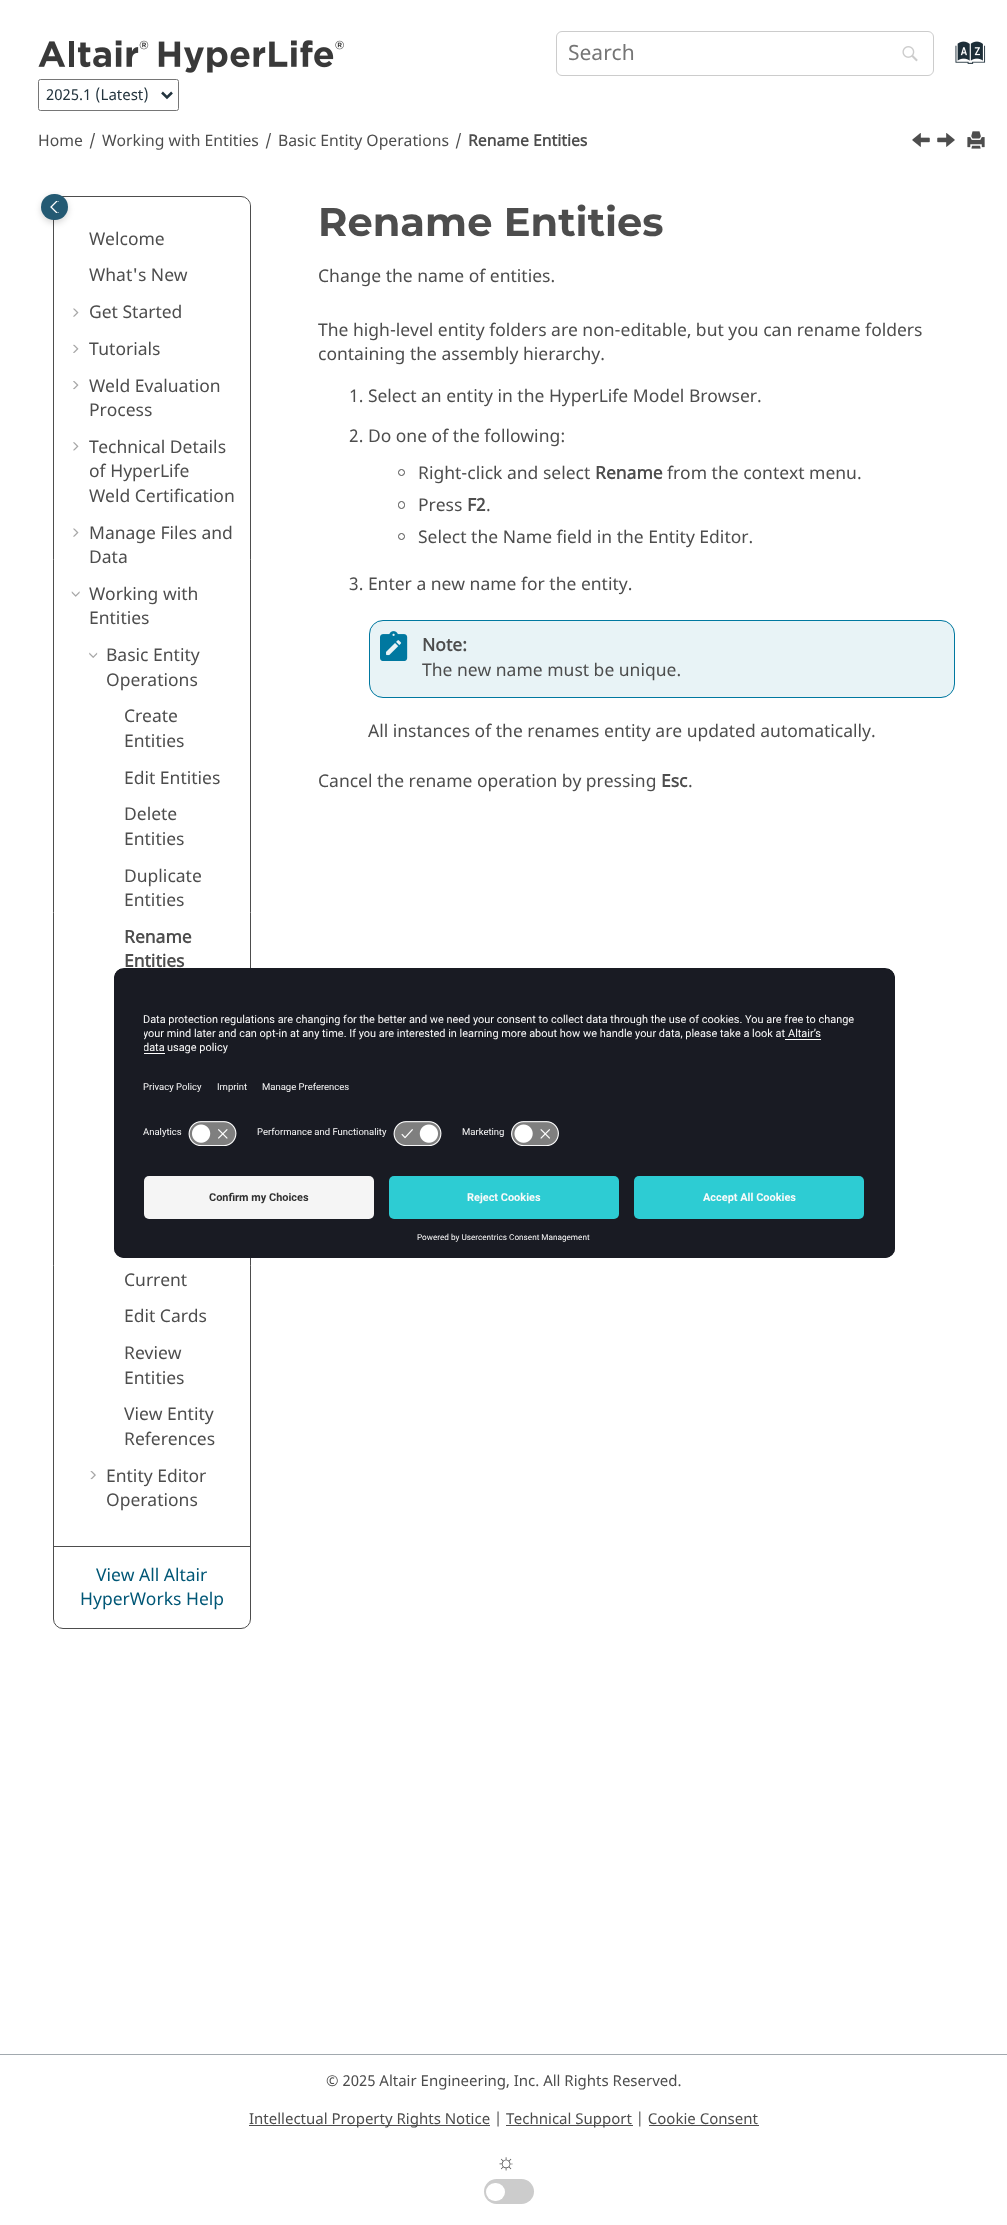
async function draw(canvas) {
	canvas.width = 1007;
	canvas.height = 2225;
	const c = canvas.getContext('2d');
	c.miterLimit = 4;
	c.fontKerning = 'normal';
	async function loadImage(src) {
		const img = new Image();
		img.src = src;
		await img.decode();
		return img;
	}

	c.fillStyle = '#fff';
	c.fillRect(0, 0, 1007, 2225);
	c.beginPath();
	c.roundRect(556.5, 31.5, 377, 44, 5.5);
	c.strokeStyle = '#ccc';
	c.stroke();
	c.font = '21px Noto Sans';
	c.fillStyle = '#757575';
	c.fillText('Search', 568, 60);
	c.drawImage(await loadImage('img1.png'), 902, 46, 16, 16);
	c.drawImage(await loadImage('img2.png'), 955, 41, 31, 23);
	c.drawImage(await loadImage('img3.png'), 38, 40, 306, 33);
	c.beginPath();
	c.roundRect(38.5, 79.5, 140, 31, 2);
	c.strokeStyle = '#767676';
	c.stroke();
	c.beginPath();
	c.moveTo(162, 92.5);
	c.lineTo(167, 97.5);
	c.lineTo(172, 92.5);
	c.strokeStyle = '#23343e';
	c.lineWidth = 2.5;
	c.stroke();
	c.font = '15px Noto Sans';
	c.fillStyle = '#23343e';
	c.fillText('2025.1 (Latest)', 46, 100);
	c.font = '15.75px Noto Sans';
	c.fillStyle = '#4d4d4d';
	for (const [text, x, y] of [
		['Home', 38, 146],
		['/', 89, 146],
		['Working with Entities', 102, 146],
		['/', 265, 146],
		['Basic Entity Operations', 278, 146],
		['/', 455, 146],
	]) {
		c.fillText(text, x, y);
	}
	c.font = 'bold 15.75px Noto Sans';
	c.fillText('Rename Entities', 468, 146);
	c.drawImage(await loadImage('img4.png'), 912, 133, 18, 14);
	c.drawImage(await loadImage('img5.png'), 937, 133, 18, 14);
	c.drawImage(await loadImage('img6.png'), 967, 131, 18, 18);
	c.beginPath();
	c.roundRect(53.5, 196.5, 197, 1432, 9.5);
	c.strokeStyle = '#4d4d4d';
	c.lineWidth = 1;
	c.stroke();
	c.fillStyle = '#fff';
	c.beginPath();
	c.roundRect(54, 198, 196, 1348, [9, 9, 4, 4]);
	c.fill();
	c.font = '17.5px Noto Sans';
	c.fillStyle = '#4d4d4d';
	c.fillText('Welcome', 89, 245);
	c.fillText('What\'s New', 89, 281);
	c.drawImage(await loadImage('img7.png'), 73, 308, 6, 9);
	c.fillText('Get Started', 89, 318);
	c.drawImage(await loadImage('img8.png'), 73, 344, 6, 9);
	c.fillText('Tutorials', 89, 355);
	c.drawImage(await loadImage('img9.png'), 73, 381, 6, 9);
	c.fillText('Weld Evaluation', 89, 392);
	c.fillText('Process', 89, 416);
	c.drawImage(await loadImage('img10.png'), 73, 442, 6, 9);
	for (const [text, x, y] of [
		['Technical Details', 89, 453],
		['of HyperLife', 89, 477],
		['Weld Certification', 89, 502],
	]) {
		c.fillText(text, x, y);
	}
	c.drawImage(await loadImage('img7.png'), 73, 528, 6, 9);
	c.fillText('Manage Files and', 89, 539);
	c.fillText('Data', 89, 563);
	c.drawImage(await loadImage('img11.png'), 71, 591, 9, 6);
	c.fillText('Working with', 89, 600);
	c.fillText('Entities', 89, 624);
	c.drawImage(await loadImage('img12.png'), 89, 652, 9, 6);
	for (const [text, x, y] of [
		['Basic Entity', 106, 661],
		['Operations', 106, 686],
		['Create', 124, 722],
		['Entities', 124, 747],
		['Edit Entities', 124, 784],
		['Delete', 124, 820],
		['Entities', 124, 845],
		['Duplicate', 124, 882],
		['Entities', 124, 906],
	]) {
		c.fillText(text, x, y);
	}
	c.font = 'bold 17.5px Noto Sans';
	c.fillText('Rename', 124, 943);
	c.fillText('Entities', 124, 967);
	c.font = '17.5px Noto Sans';
	for (const [text, x, y] of [
		['Current', 124, 1286],
		['Edit Cards', 124, 1322],
		['Review', 124, 1359],
		['Entities', 124, 1384],
		['View Entity', 124, 1420],
		['References', 124, 1445],
	]) {
		c.fillText(text, x, y);
	}
	c.drawImage(await loadImage('img13.png'), 90, 1471, 6, 9);
	c.fillText('Entity Editor', 106, 1482);
	c.fillText('Operations', 106, 1506);
	c.fillRect(54, 1546, 196, 1);
	c.fillStyle = '#005776';
	c.fillText('View All Altair', 96, 1581);
	c.fillText('HyperWorks Help', 80, 1605);
	c.fillStyle = '#00000029';
	c.filter = 'blur(3px)';
	c.beginPath();
	c.roundRect(41, 196, 27, 27, 13.5);
	c.fill();
	c.filter = 'none';
	c.fillStyle = '#245a73';
	c.beginPath();
	c.roundRect(41, 194, 27, 26, 13);
	c.fill();
	c.save();
	c.beginPath();
	c.rect(50, 201, 9, 12);
	c.clip();
	c.beginPath();
	c.moveTo(58, 200);
	c.lineTo(65, 207);
	c.lineTo(58, 214);
	c.lineTo(51, 207);
	c.closePath();
	c.strokeStyle = '#fff';
	c.lineWidth = 1.3;
	c.stroke();
	c.restore();
	c.font = 'bold 40px Montserrat';
	c.fillStyle = '#4d4d4d';
	c.fillText('Rename Entities', 318, 236);
	c.font = '17.5px Noto Sans';
	for (const [text, x, y] of [
		['Change the name of entities.', 318, 282],
		['The high-level entity folders are non-editable, but you can rename folders', 318, 336],
		['containing the assembly hierarchy.', 318, 360],
		['1. Select an entity in the HyperLife Model Browser.', 349, 402],
		['2. Do one of the following:', 349, 442],
	]) {
		c.fillText(text, x, y);
	}
	c.beginPath();
	c.arc(401.5, 472.5, 3, 0, 2 * Math.PI);
	c.stroke();
	c.fillText('Right-click and select', 418, 479);
	c.font = 'bold 17.5px Noto Sans';
	c.fillText('Rename', 595, 479);
	c.font = '17.5px Noto Sans';
	c.fillText('from the context menu.', 667, 479);
	c.beginPath();
	c.roundRect(398.5, 501.5, 6, 7, 3);
	c.stroke();
	c.fillText('Press', 418, 511);
	c.font = 'bold 17.5px Noto Sans';
	c.fillText('F2', 467, 511);
	c.font = '17.5px Noto Sans';
	c.fillText('.', 486, 511);
	c.beginPath();
	c.arc(401.5, 536.5, 3, 0, 2 * Math.PI);
	c.stroke();
	c.fillText('Select the Name field in the Entity Editor.', 418, 543);
	c.fillText('3. Enter a new name for the entity.', 349, 590);
	c.fillStyle = '#e8f3f6';
	c.beginPath();
	c.roundRect(369, 620, 586, 78, 14);
	c.fill();
	c.drawImage(await loadImage('img14.png'), 380, 631, 28, 30);
	c.beginPath();
	c.roundRect(369.5, 620.5, 585, 77, 13.5);
	c.strokeStyle = '#0078a0';
	c.stroke();
	c.font = 'bold 17.5px Noto Sans';
	c.fillStyle = '#4d4d4d';
	c.fillText('Note:', 422, 651);
	c.font = '17.5px Noto Sans';
	for (const [text, x, y] of [
		['The new name must be unique.', 422, 676],
		['All instances of the renames entity are updated automatically.', 368, 737],
		['Cancel the rename operation by pressing', 318, 787],
	]) {
		c.fillText(text, x, y);
	}
	c.font = 'bold 17.5px Noto Sans';
	c.fillText('Esc', 661, 787);
	c.font = '17.5px Noto Sans';
	c.fillText('.', 688, 787);
	c.fillStyle = '#191b23';
	c.beginPath();
	c.roundRect(114, 968, 781, 290, 10);
	c.fill();
	c.save();
	c.beginPath();
	c.roundRect(114, 968, 781, 290, 10);
	c.clip();
	c.beginPath();
	c.roundRect(114, 968, 781, 198, [10, 10, 0, 0]);
	c.clip();
	c.fillRect(114, 969, 781, 197);
	c.fillRect(114, 969, 781, 147);
	c.restore();
	c.font = '10.95px Roboto';
	c.fillStyle = '#fafafa';
	c.fillText('Data protection regulations are changing for the better and we need your consent to collect data through the use of cookies. You are free to change', 143, 1023);
	c.save();
	c.beginPath();
	c.rect(144, 1009, 721, 51);
	c.clip();
	c.fillText('your mind later and can opt-in at any time. If you are interested in learning more about how we handle your data, please take a look at', 143, 1037);
	c.restore();
	c.fillText('Altair’s', 788, 1037);
	c.fillStyle = '#fff';
	c.fillRect(785, 1039, 36, 1);
	c.save();
	c.beginPath();
	c.rect(144, 1009, 721, 51);
	c.clip();
	c.fillStyle = '#fafafa';
	c.fillText('data', 143, 1051);
	c.restore();
	c.fillRect(144, 1053, 21, 1);
	c.fillStyle = '#fafafa';
	c.fillText('usage policy', 167, 1051);
	c.font = '9.5px Roboto';
	for (const [text, x, y] of [
		['Privacy Policy', 143, 1090],
		['Imprint', 217, 1090],
		['Manage Preferences', 262, 1090],
		['Analytics', 143, 1135],
	]) {
		c.fillText(text, x, y);
	}
	c.drawImage(await loadImage('img15.png'), 188, 1121, 49, 25);
	c.fillText('Performance and Functionality', 257, 1135);
	c.drawImage(await loadImage('img16.png'), 393, 1121, 49, 25);
	c.fillText('Marketing', 462, 1135);
	c.drawImage(await loadImage('img17.png'), 511, 1121, 48, 25);
	c.fillStyle = '#191b23';
	c.beginPath();
	c.roundRect(114, 1166, 781, 92, [0, 0, 10, 10]);
	c.fill();
	c.fillStyle = '#f5f5f5';
	c.beginPath();
	c.roundRect(144, 1176, 230, 43, 5);
	c.fill();
	c.font = 'bold 10.95px Roboto';
	c.fillStyle = '#303030';
	c.fillText('Confirm my Choices', 209, 1201);
	c.fillStyle = '#2dccd3';
	c.beginPath();
	c.roundRect(389, 1176, 230, 43, 5);
	c.fill();
	c.fillStyle = '#fafafa';
	c.fillText('Reject Cookies', 467, 1201);
	c.fillStyle = '#2dccd3';
	c.beginPath();
	c.roundRect(634, 1176, 230, 43, 5);
	c.fill();
	c.fillStyle = '#fafafa';
	c.fillText('Accept All Cookies', 703, 1201);
	c.font = '8.2px Roboto';
	c.fillText('Powered by Usercentrics Consent Management', 417, 1240);
	c.fillStyle = '#a2a9af';
	c.fillRect(0, 2054, 1007, 1);
	c.font = '15px Noto Sans';
	c.fillStyle = '#4d4d4d';
	c.fillText('© 2025 Altair Engineering, Inc. All Rights Reserved.', 326, 2086);
	c.fillRect(249, 2125, 241, 1);
	c.fillText('Intellectual Property Rights Notice |', 249, 2124);
	c.fillRect(506, 2125, 127, 1);
	c.fillText('Technical Support | Cookie Consent', 506, 2124);
	c.fillRect(649, 2125, 110, 1);
	c.font = '22px Liberation Sans';
	c.fillText('☼', 496, 2169);
	c.fillStyle = '#ccc';
	c.beginPath();
	c.roundRect(484, 2179, 50, 25, 12.5);
	c.fill();
	c.fillStyle = '#fff';
	c.beginPath();
	c.roundRect(486, 2183, 19, 18, 9);
	c.fill();
}

draw(document.querySelector('canvas'));
